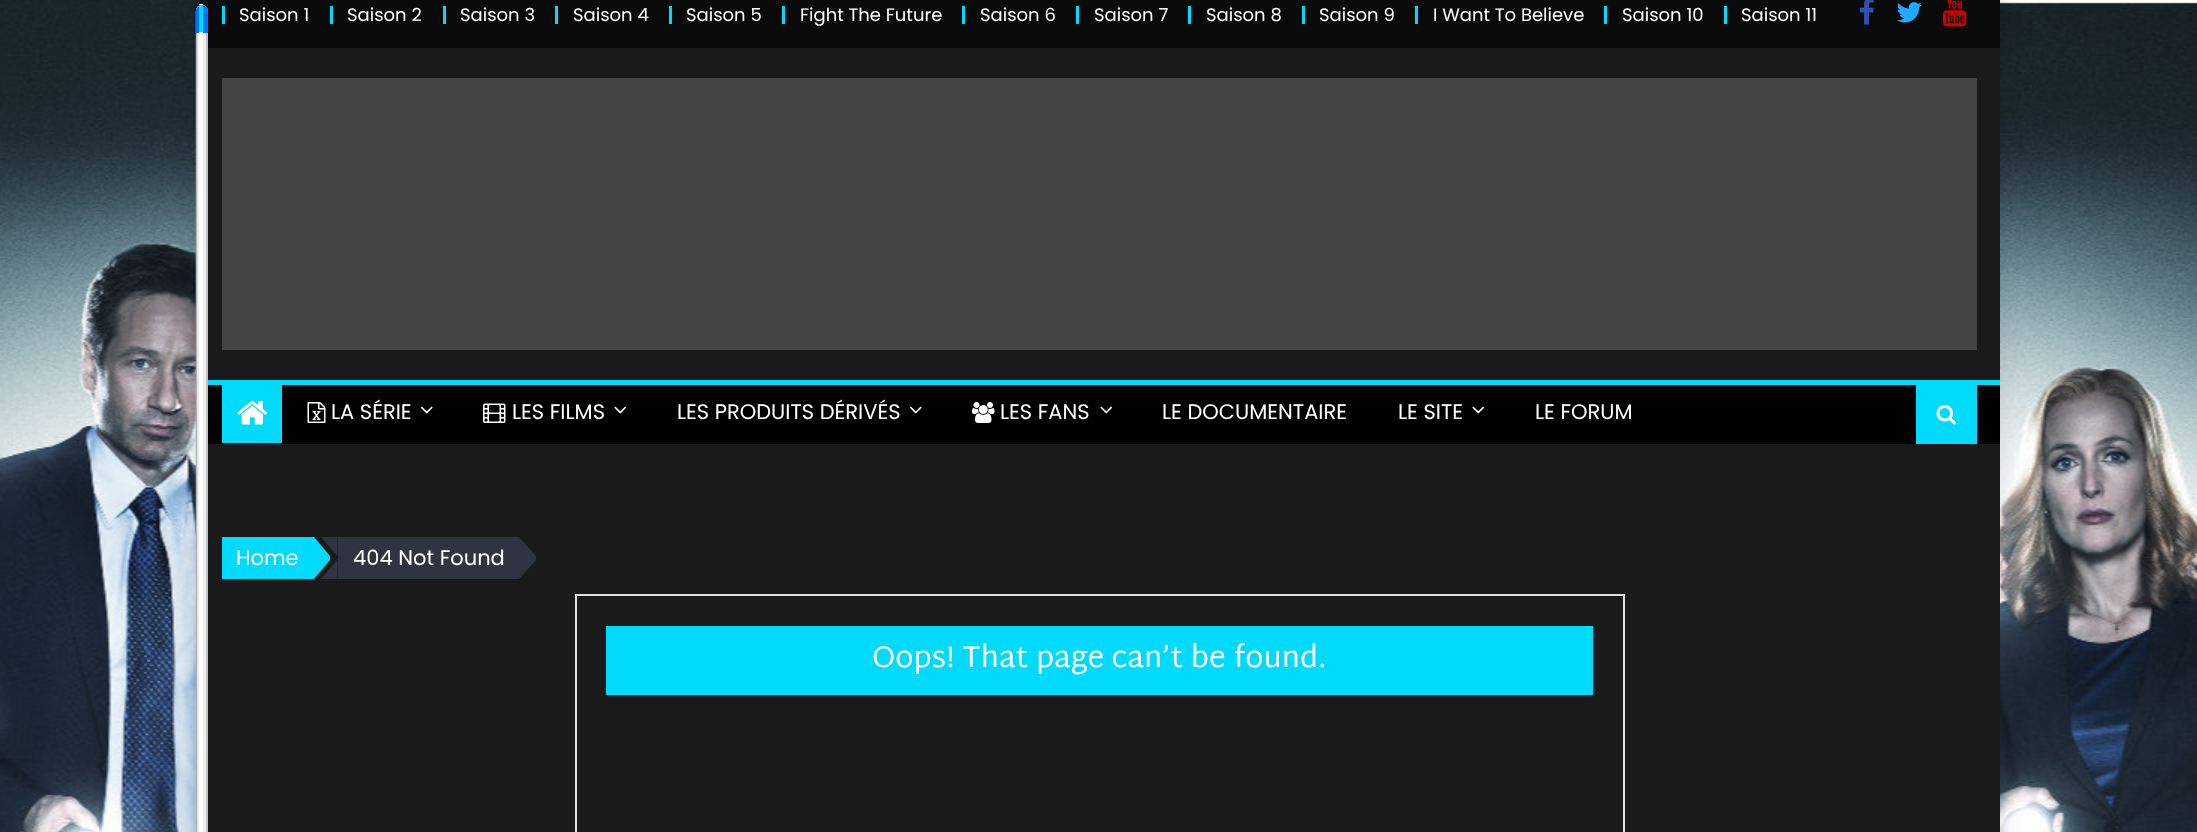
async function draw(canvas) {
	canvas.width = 2197;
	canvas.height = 832;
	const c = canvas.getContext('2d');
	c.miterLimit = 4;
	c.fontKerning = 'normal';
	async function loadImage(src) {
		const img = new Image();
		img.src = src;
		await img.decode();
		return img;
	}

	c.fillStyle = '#fff';
	c.fillRect(0, 0, 2197, 832);
	c.drawImage(await loadImage('img1.png'), 0, 0, 2197, 832);
	c.fillStyle = '#0000001a';
	c.filter = 'blur(11px)';
	c.beginPath();
	c.rect(200, -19, 1800, 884);
	c.fill();
	c.filter = 'none';
	for (const [x, y, w, h, color] of [
		[208, 48, 1792, 784, '#1a1a1a'],
		[200, 0, 1800, 48, '#0a0a0a'],
		[200, 380, 1800, 5, '#00dafc'],
	]) {
		c.fillStyle = color;
		c.fillRect(x, y, w, h);
	}
	c.fillStyle = '#efefef';
	c.beginPath();
	c.moveTo(208, 11);
	c.lineTo(208, 832);
	c.bezierCurveTo(208, 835, 205, 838, 202, 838);
	c.bezierCurveTo(198, 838, 196, 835, 196, 832);
	c.lineTo(196, 11);
	c.bezierCurveTo(196, 8, 198, 5, 202, 5);
	c.bezierCurveTo(205, 5, 208, 8, 208, 11);
	c.closePath();
	c.fill();
	c.beginPath();
	c.moveTo(207, 11);
	c.lineTo(207, 832);
	c.bezierCurveTo(207, 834.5, 204.5, 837, 202, 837);
	c.bezierCurveTo(199, 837, 196.5, 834.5, 196.5, 832);
	c.lineTo(196.5, 11);
	c.bezierCurveTo(196.5, 8.5, 199, 6, 202, 6);
	c.bezierCurveTo(204.5, 6, 207, 8.5, 207, 11);
	c.closePath();
	c.strokeStyle = '#b2b2b2';
	c.lineWidth = 1.5;
	c.stroke();
	c.fillStyle = '#0075ff';
	c.beginPath();
	c.moveTo(208, 11);
	c.lineTo(208, 33);
	c.lineTo(196, 33);
	c.lineTo(196, 9.5);
	c.lineTo(197, 8);
	c.bezierCurveTo(200, 3, 208, 5.5, 208, 11);
	c.closePath();
	c.fill();
	for (const [x, y, w, h, color] of [
		[199, 4, 4, 828, '#fff'],
		[199, 5, 4, 27, '#00dafc'],
		[222, 6, 3, 18, '#00dafc'],
	]) {
		c.fillStyle = color;
		c.fillRect(x, y, w, h);
	}
	c.font = '18px Poppins';
	c.fillStyle = '#fff';
	c.fillText('Saison 1', 239, 21);
	c.fillStyle = '#00dafc';
	c.fillRect(330, 6, 3, 18);
	c.fillStyle = '#fff';
	c.fillText('Saison 2', 347, 21);
	c.fillStyle = '#00dafc';
	c.fillRect(443, 6, 3, 18);
	c.fillStyle = '#fff';
	c.fillText('Saison 3', 460, 21);
	c.fillStyle = '#00dafc';
	c.fillRect(555, 6, 3, 18);
	c.fillStyle = '#fff';
	c.fillText('Saison 4', 573, 21);
	c.fillStyle = '#00dafc';
	c.fillRect(669, 6, 3, 18);
	c.fillStyle = '#fff';
	c.fillText('Saison 5', 686, 21);
	c.fillStyle = '#00dafc';
	c.fillRect(782, 6, 3, 18);
	c.fillStyle = '#fff';
	c.fillText('Fight The Future', 800, 21);
	c.fillStyle = '#00dafc';
	c.fillRect(962, 6, 3, 18);
	c.fillStyle = '#fff';
	c.fillText('Saison 6', 980, 21);
	c.fillStyle = '#00dafc';
	c.fillRect(1076, 6, 3, 18);
	c.fillStyle = '#fff';
	c.fillText('Saison 7', 1094, 21);
	c.fillStyle = '#00dafc';
	c.fillRect(1188, 6, 3, 18);
	c.fillStyle = '#fff';
	c.fillText('Saison 8', 1206, 21);
	c.fillStyle = '#00dafc';
	c.fillRect(1302, 6, 3, 18);
	c.fillStyle = '#fff';
	c.fillText('Saison 9', 1319, 21);
	c.fillStyle = '#00dafc';
	c.fillRect(1415, 6, 3, 18);
	c.fillStyle = '#fff';
	c.fillText('I Want To Believe', 1433, 21);
	c.fillStyle = '#00dafc';
	c.fillRect(1604, 6, 3, 18);
	c.fillStyle = '#fff';
	c.fillText('Saison 10', 1622, 21);
	c.fillStyle = '#00dafc';
	c.fillRect(1724, 6, 3, 18);
	c.fillStyle = '#fff';
	c.fillText('Saison 11', 1741, 21);
	c.drawImage(await loadImage('img2.png'), 1860, 0, 14, 25);
	c.drawImage(await loadImage('img3.png'), 1896, 2, 26, 21);
	c.drawImage(await loadImage('img4.png'), 1942, 0, 25, 27);
	for (const [x, y, w, h, color] of [
		[222, 78, 1755, 272, '#444'],
		[208, 385, 1792, 59, '#000'],
		[222, 385, 60, 58, '#00dafc'],
	]) {
		c.fillStyle = color;
		c.fillRect(x, y, w, h);
	}
	c.drawImage(await loadImage('img5.png'), 237, 400, 31, 25);
	c.drawImage(await loadImage('img6.png'), 307, 402, 19, 21);
	c.font = '21px Poppins';
	c.fillStyle = '#fff';
	c.fillText('LA SÉRIE', 331, 419);
	c.drawImage(await loadImage('img7.png'), 420, 406, 13, 8);
	c.drawImage(await loadImage('img8.png'), 483, 403, 23, 20);
	c.fillText('LES FILMS', 512, 419);
	c.drawImage(await loadImage('img9.png'), 614, 406, 13, 8);
	c.fillText('LES PRODUITS DÉRIVÉS', 677, 419);
	c.drawImage(await loadImage('img7.png'), 909, 406, 13, 8);
	c.drawImage(await loadImage('img10.png'), 972, 402, 23, 21);
	c.fillText('LES FANS', 1000, 419);
	c.drawImage(await loadImage('img9.png'), 1100, 406, 13, 8);
	c.fillText('LE DOCUMENTAIRE', 1162, 419);
	c.fillText('LE SITE', 1398, 419);
	c.drawImage(await loadImage('img9.png'), 1472, 406, 13, 8);
	c.fillText('LE FORUM', 1535, 419);
	c.fillStyle = '#00dafc';
	c.fillRect(1916, 385, 61, 59);
	c.drawImage(await loadImage('img11.png'), 1936, 405, 20, 20);
	c.fillRect(222, 537, 92, 42);
	c.fillStyle = '#fff';
	c.fillText('Home', 236, 565);
	c.fillStyle = '#00dafc';
	c.beginPath();
	c.moveTo(314, 579);
	c.lineTo(314, 537);
	c.lineTo(330, 556);
	c.lineTo(330, 560);
	c.closePath();
	c.fill();
	c.fillStyle = '#303440';
	c.beginPath();
	c.moveTo(321, 537);
	c.lineTo(337.5, 537);
	c.lineTo(337.5, 556.5);
	c.closePath();
	c.moveTo(337.5, 579);
	c.lineTo(321, 579);
	c.lineTo(337.5, 559.5);
	c.closePath();
	c.fill();
	c.fillRect(338, 537, 181, 42);
	c.fillStyle = '#fff';
	c.fillText('404 Not Found', 353, 565);
	c.fillStyle = '#303440';
	c.beginPath();
	c.moveTo(519, 579);
	c.lineTo(519, 537);
	c.lineTo(536, 556);
	c.lineTo(536, 560);
	c.closePath();
	c.fill();
	c.strokeStyle = '#e1e1e1';
	c.lineWidth = 2;
	c.strokeRect(576, 595, 1048, 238);
	c.fillStyle = '#00dafc';
	c.fillRect(606, 626, 987, 69);
	c.font = '30px Martel Sans';
	c.fillStyle = '#fff';
	c.fillText('Oops! That page can’t be found.', 872, 667);
}

draw(document.querySelector('canvas'));
